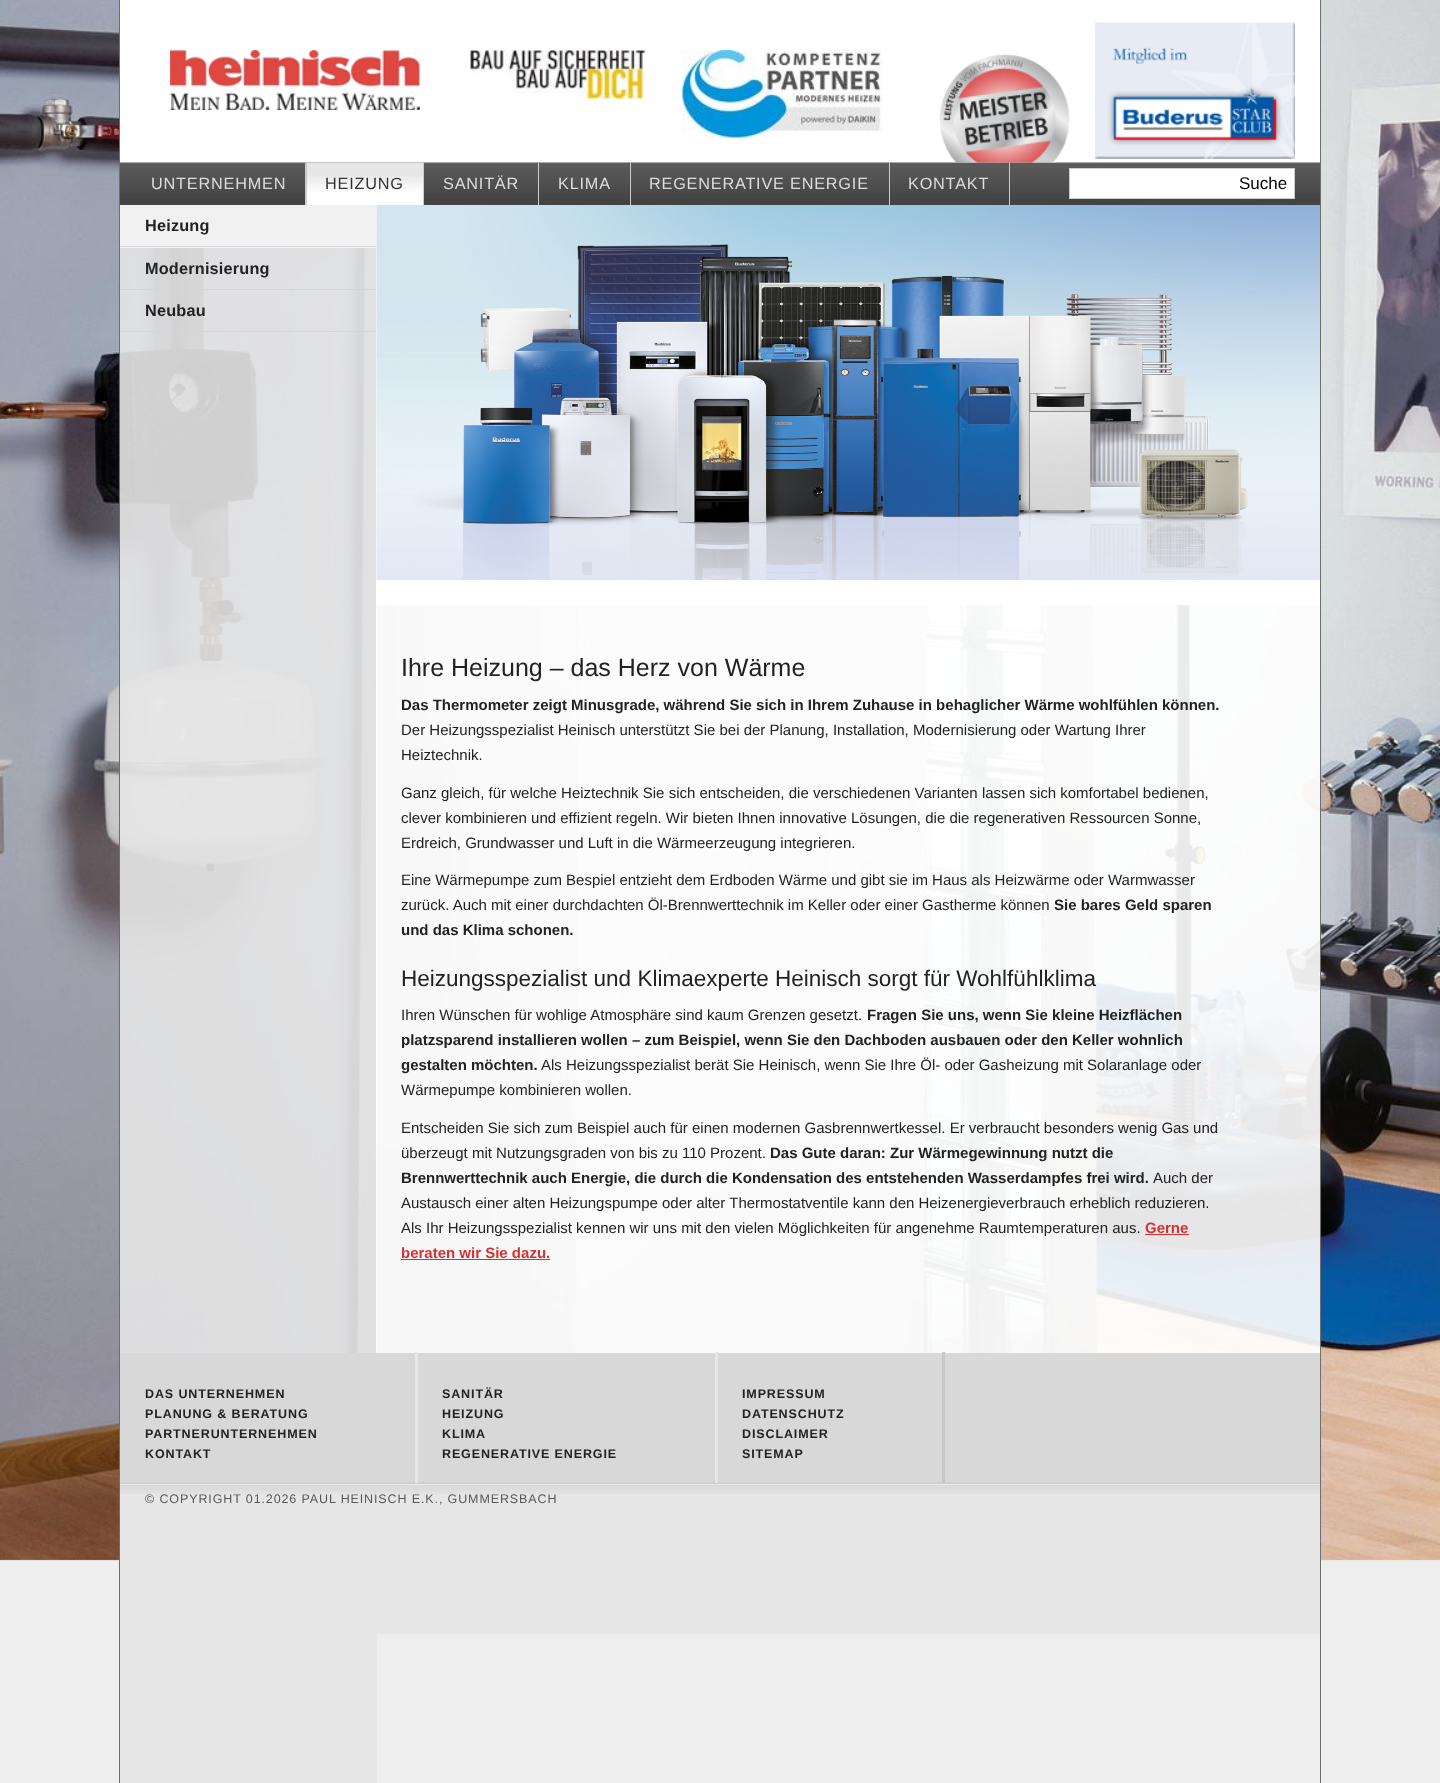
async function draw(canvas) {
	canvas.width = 1440;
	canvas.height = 1783;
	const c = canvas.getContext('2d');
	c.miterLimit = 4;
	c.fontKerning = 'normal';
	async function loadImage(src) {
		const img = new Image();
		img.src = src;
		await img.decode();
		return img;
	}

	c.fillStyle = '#eee';
	c.fillRect(0, 0, 1440, 1783);
	c.drawImage(await loadImage('img1.png'), 0, 0, 1440, 1561);
	for (const [x, y, w, h, color] of [
		[120, 248, 257, 1535, '#e6e6e6e6'],
		[1320, 0, 1, 1783, '#6e6e6e'],
		[119, 0, 1, 1783, '#6e6e6e'],
		[120, 0, 1200, 163, '#fff'],
	]) {
		c.fillStyle = color;
		c.fillRect(x, y, w, h);
	}
	c.drawImage(await loadImage('img2.png'), 170, 50, 250, 60);
	c.drawImage(await loadImage('img7.png'), 120, 162, 1200, 43);
	c.drawImage(await loadImage('img3.png'), 939, 53, 131, 110);
	c.drawImage(await loadImage('img4.png'), 470, 50, 175, 49);
	c.drawImage(await loadImage('img5.png'), 682, 50, 201, 88);
	c.drawImage(await loadImage('img6.png'), 1095, 22, 200, 137);
	c.fillStyle = '#ccc';
	c.fillRect(305, 163, 1, 42);
	c.letterSpacing = '0.8px';
	c.font = '16.25px Liberation Sans';
	c.fillStyle = '#ddd';
	c.fillText('UNTERNEHMEN', 151, 189);
	c.drawImage(await loadImage('img8.png'), 306, 162, 118, 43);
	c.fillStyle = '#ccc';
	c.fillRect(423, 163, 1, 42);
	c.fillStyle = '#333';
	c.fillText('HEIZUNG', 325, 189);
	c.fillStyle = '#ccc';
	c.fillRect(538, 163, 1, 42);
	c.fillStyle = '#ddd';
	c.fillText('SANITÄR', 443, 189);
	c.fillStyle = '#ccc';
	c.fillRect(630, 163, 1, 42);
	c.fillStyle = '#ddd';
	c.fillText('KLIMA', 558, 189);
	c.fillStyle = '#ccc';
	c.fillRect(889, 163, 1, 42);
	c.fillStyle = '#ddd';
	c.fillText('REGENERATIVE ENERGIE', 649, 189);
	c.fillStyle = '#ccc';
	c.fillRect(1009, 163, 1, 42);
	c.fillStyle = '#ddd';
	c.fillText('KONTAKT', 908, 189);
	for (const [x, y, w, h, color] of [
		[1070, 169, 224, 29, '#fff'],
		[1069, 168, 226, 1, '#ccc'],
		[1069, 198, 164, 1, '#ccc'],
		[1069, 168, 1, 31, '#ccc'],
		[1294, 168, 1, 31, '#ccc'],
		[1233, 198, 62, 1, '#ccc'],
	]) {
		c.fillStyle = color;
		c.fillRect(x, y, w, h);
	}
	c.letterSpacing = '0px';
	c.font = '17px Liberation Sans';
	c.fillStyle = '#000';
	c.fillText('Suche', 1239, 189);
	c.fillStyle = '#f1f1f1';
	c.fillRect(120, 205, 256, 43);
	c.fillStyle = '#d5d5d5';
	c.fillRect(120, 246, 256, 1);
	c.letterSpacing = '0.2px';
	c.font = 'bold 16.25px Liberation Sans';
	c.fillStyle = '#222';
	c.fillText('Heizung', 145, 231);
	c.fillStyle = '#d5d5d5';
	c.fillRect(120, 289, 256, 1);
	c.fillStyle = '#222';
	c.fillText('Modernisierung', 145, 274);
	c.fillStyle = '#d5d5d5';
	c.fillRect(120, 331, 256, 1);
	c.fillStyle = '#222';
	c.fillText('Neubau', 145, 316);
	c.fillStyle = '#fff';
	c.fillRect(376, 205, 944, 400);
	c.drawImage(await loadImage('img9.png'), 376, 205, 944, 375);
	c.fillStyle = '#ffffffe6';
	c.fillRect(376, 605, 944, 748);
	c.letterSpacing = '0px';
	c.font = '25px Liberation Sans';
	c.fillStyle = '#222';
	c.fillText('Ihre Heizung – das Herz von Wärme', 401, 676);
	c.font = 'bold 15px Liberation Sans';
	c.fillText('Das Thermometer zeigt Minusgrade, während Sie sich in Ihrem Zuhause in behaglicher Wärme wohlfühlen können.', 401, 710);
	c.font = '15px Liberation Sans';
	for (const [text, x, y] of [
		['Der Heizungsspezialist Heinisch unterstützt Sie bei der Planung, Installation, Modernisierung oder Wartung Ihrer', 401, 735],
		['Heiztechnik.', 401, 760],
		['Ganz gleich, für welche Heiztechnik Sie sich entscheiden, die verschiedenen Varianten lassen sich komfortabel bedienen,', 401, 798],
		['clever kombinieren und effizient regeln. Wir bieten Ihnen innovative Lösungen, die die regenerativen Ressourcen Sonne,', 401, 823],
		['Erdreich, Grundwasser und Luft in die Wärmeerzeugung integrieren.', 401, 848],
		['Eine Wärmepumpe zum Bespiel entzieht dem Erdboden Wärme und gibt sie im Haus als Heizwärme oder Warmwasser', 401, 885],
		['zurück. Auch mit einer durchdachten Öl-Brennwerttechnik im Keller oder einer Gastherme können', 401, 910],
	]) {
		c.fillText(text, x, y);
	}
	c.font = 'bold 15px Liberation Sans';
	c.fillText('Sie bares Geld sparen', 1054, 910);
	c.fillText('und das Klima schonen.', 401, 935);
	c.font = '22.5px Liberation Sans';
	c.fillText('Heizungsspezialist und Klimaexperte Heinisch sorgt für Wohlfühlklima', 401, 986);
	c.font = '15px Liberation Sans';
	c.fillText('Ihren Wünschen für wohlige Atmosphäre sind kaum Grenzen gesetzt.', 401, 1020);
	c.font = 'bold 15px Liberation Sans';
	for (const [text, x, y] of [
		['Fragen Sie uns, wenn Sie kleine Heizflächen', 867, 1020],
		['platzsparend installieren wollen – zum Beispiel, wenn Sie den Dachboden ausbauen oder den Keller wohnlich', 401, 1045],
		['gestalten möchten.', 401, 1070],
	]) {
		c.fillText(text, x, y);
	}
	c.font = '15px Liberation Sans';
	for (const [text, x, y] of [
		['Als Heizungsspezialist berät Sie Heinisch, wenn Sie Ihre Öl- oder Gasheizung mit Solaranlage oder', 541, 1070],
		['Wärmepumpe kombinieren wollen.', 401, 1095],
		['Entscheiden Sie sich zum Beispiel auch für einen modernen Gasbrennwertkessel. Er verbraucht besonders wenig Gas und', 401, 1133],
		['überzeugt mit Nutzungsgraden von bis zu 110 Prozent.', 401, 1158],
	]) {
		c.fillText(text, x, y);
	}
	c.font = 'bold 15px Liberation Sans';
	c.fillText('Das Gute daran: Zur Wärmegewinnung nutzt die', 770, 1158);
	c.fillText('Brennwerttechnik auch Energie, die durch die Kondensation des entstehenden Wasserdampfes frei wird.', 401, 1183);
	c.font = '15px Liberation Sans';
	for (const [text, x, y] of [
		['Auch der', 1153, 1183],
		['Austausch einer alten Heizungspumpe oder alter Thermostatventile kann den Heizenergieverbrauch erheblich reduzieren.', 401, 1208],
		['Als Ihr Heizungsspezialist kennen wir uns mit den vielen Möglichkeiten für angenehme Raumtemperaturen aus.', 401, 1233],
	]) {
		c.fillText(text, x, y);
	}
	c.font = 'bold 15px Liberation Sans';
	c.fillStyle = '#d53133';
	c.fillText('Gerne', 1145, 1233);
	c.fillRect(1145, 1234, 44, 1);
	c.fillText('beraten wir Sie dazu.', 401, 1258);
	c.fillRect(401, 1259, 149, 1);
	c.fillStyle = '#d8d8d8';
	c.fillRect(120, 1353, 1200, 130);
	c.drawImage(await loadImage('img10.png'), 120, 1482, 1200, 12);
	c.fillStyle = '#e6e6e6';
	c.fillRect(415, 1352, 3, 131);
	c.letterSpacing = '0.88px';
	c.font = 'bold 12.5px Liberation Sans';
	c.fillStyle = '#222';
	for (const [text, x, y] of [
		['DAS UNTERNEHMEN', 145, 1398],
		['PLANUNG & BERATUNG', 145, 1418],
		['PARTNERUNTERNEHMEN', 145, 1438],
		['KONTAKT', 145, 1458],
	]) {
		c.fillText(text, x, y);
	}
	c.fillStyle = '#e6e6e6';
	c.fillRect(715, 1352, 3, 131);
	c.fillStyle = '#222';
	for (const [text, x, y] of [
		['SANITÄR', 442, 1398],
		['HEIZUNG', 442, 1418],
		['KLIMA', 442, 1438],
		['REGENERATIVE ENERGIE', 442, 1458],
	]) {
		c.fillText(text, x, y);
	}
	c.fillStyle = '#c7c7c7';
	c.fillRect(942, 1352, 3, 131);
	c.fillStyle = '#222';
	for (const [text, x, y] of [
		['IMPRESSUM', 742, 1398],
		['DATENSCHUTZ', 742, 1418],
		['DISCLAIMER', 742, 1438],
		['SITEMAP', 742, 1458],
	]) {
		c.fillText(text, x, y);
	}
	c.fillStyle = '#e6e6e6';
	c.fillRect(120, 1494, 1200, 140);
	c.font = '12.5px Liberation Sans';
	c.fillStyle = '#585858';
	c.fillText('© COPYRIGHT 01.2026 PAUL HEINISCH E.K., GUMMERSBACH', 145, 1503);
}

draw(document.querySelector('canvas'));
